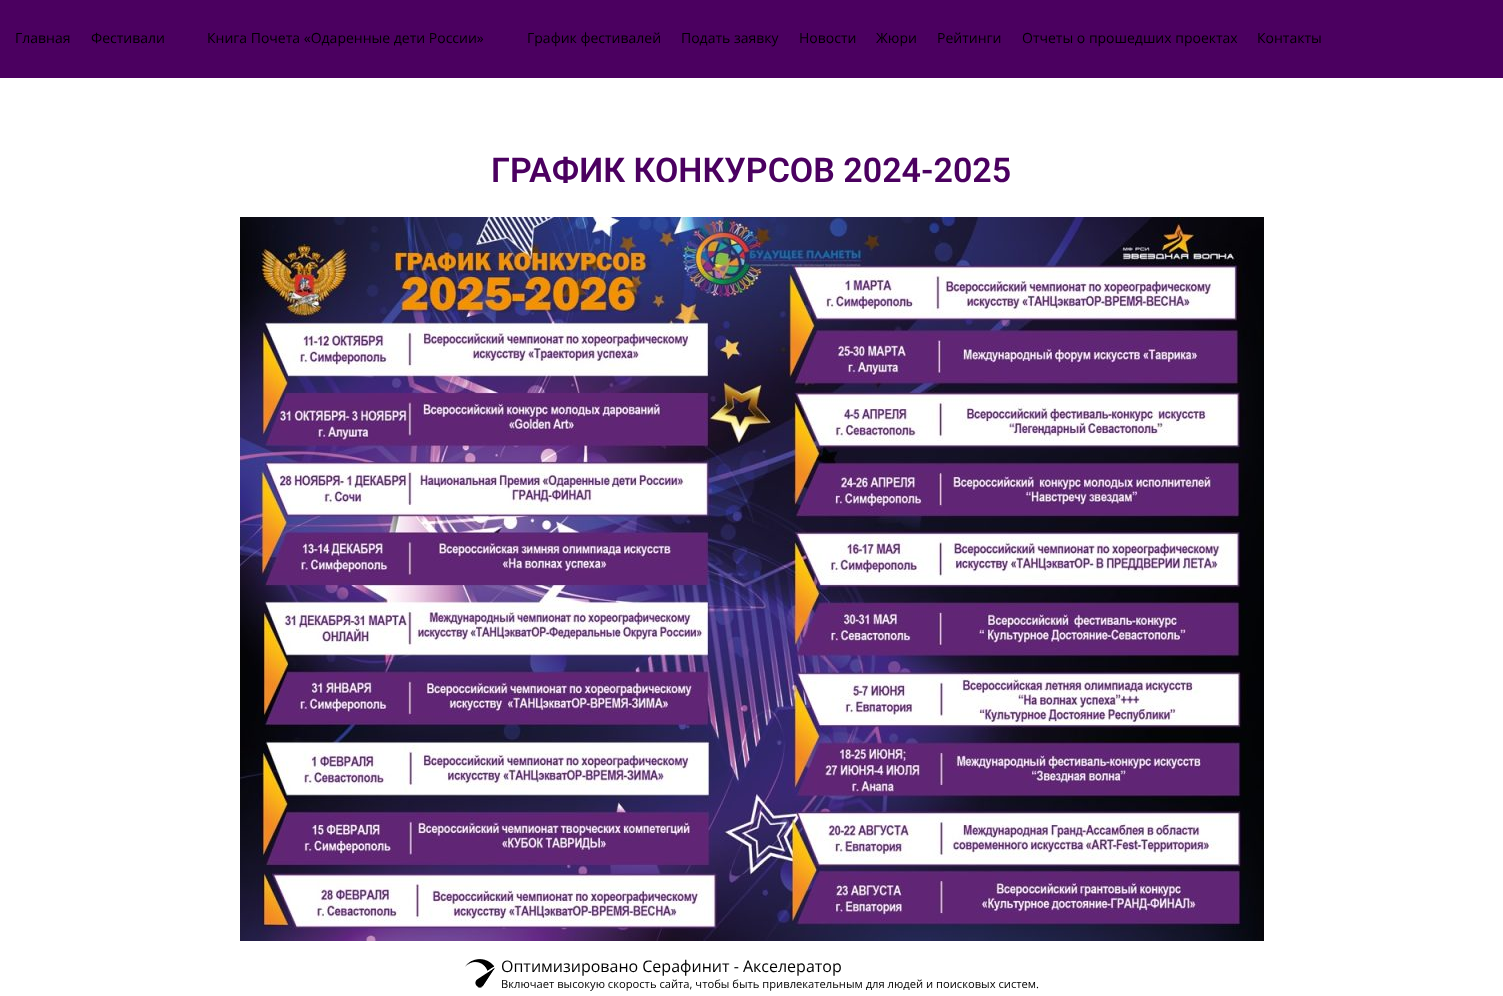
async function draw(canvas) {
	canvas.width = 1503;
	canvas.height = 996;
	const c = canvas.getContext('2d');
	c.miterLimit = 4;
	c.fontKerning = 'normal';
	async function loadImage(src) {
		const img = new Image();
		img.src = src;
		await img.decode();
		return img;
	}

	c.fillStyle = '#fff';
	c.fillRect(0, 0, 1503, 996);
	c.fillStyle = '#4b0060';
	c.fillRect(0, 0, 1503, 78);
	c.font = '14px Open Sans';
	c.fillStyle = '#000';
	for (const [text, x, y] of [
		['Главная', 15, 43],
		['Фестивали', 91, 43],
		['Книга Почета «Одаренные дети России»', 207, 43],
		['График фестивалей', 527, 43],
		['Подать заявку', 681, 43],
		['Новости', 799, 43],
		['Жюри', 876, 43],
		['Рейтинги', 937, 43],
		['Отчеты о прошедших проектах', 1022, 43],
		['Контакты', 1257, 43],
	]) {
		c.fillText(text, x, y);
	}
	c.font = '600 34px Roboto';
	c.fillStyle = '#4b0060';
	c.fillText('ГРАФИК КОНКУРСОВ 2024-2025', 491, 182);
	c.drawImage(await loadImage('img1.png'), 240, 217, 1024, 724);
	c.drawImage(await loadImage('img2.png'), 465, 959, 30, 29);
	c.font = '16px Open Sans';
	c.fillStyle = '#000';
	c.fillText('Оптимизировано Серафинит - Акселератор', 501, 972);
	c.font = '11.2px Open Sans';
	c.fillText('Включает высокую скорость сайта, чтобы быть привлекательным для людей и поисковых систем.', 501, 988);
}

draw(document.querySelector('canvas'));
